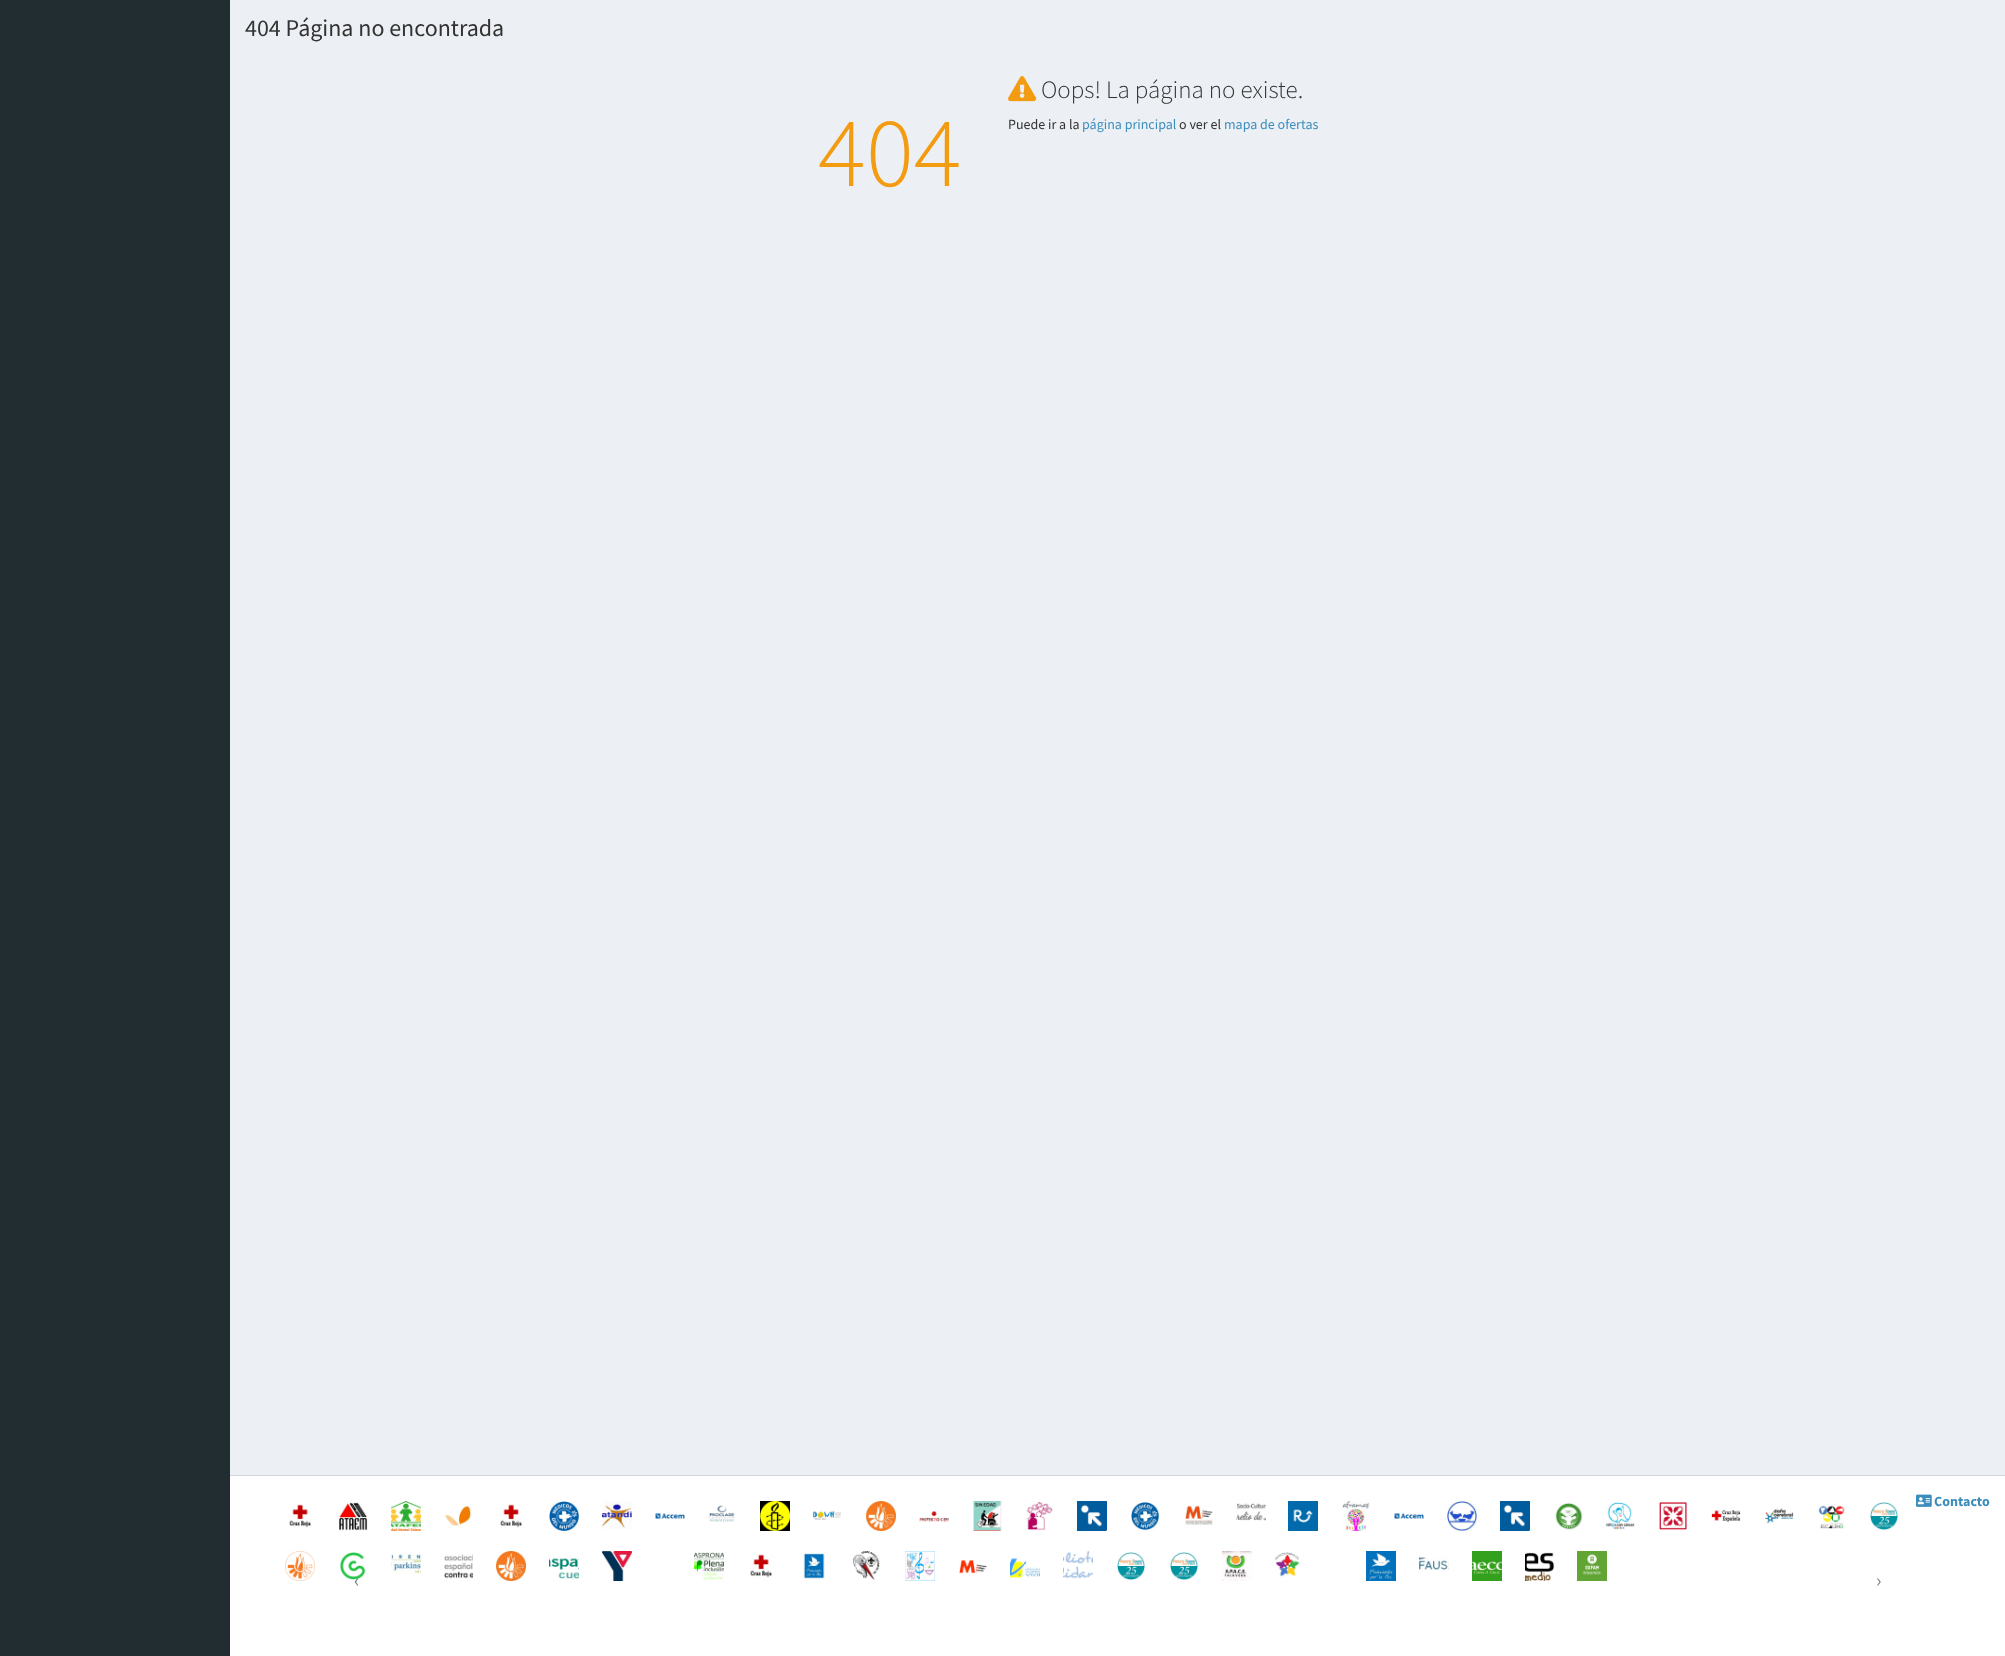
async function draw(canvas) {
	canvas.width = 2005;
	canvas.height = 1656;
	const c = canvas.getContext('2d');
	c.miterLimit = 4;
	c.fontKerning = 'normal';
	async function loadImage(src) {
		const img = new Image();
		img.src = src;
		await img.decode();
		return img;
	}

	c.fillStyle = '#222d32';
	c.fillRect(0, 0, 2005, 1656);
	c.fillStyle = '#ecf0f5';
	c.fillRect(230, 0, 1775, 1475);
	c.font = '24px Source Sans Pro';
	c.fillStyle = '#333';
	c.fillText('404 Página no encontrada', 245, 36);
	c.drawImage(await loadImage('img1.png'), 1008, 76, 29, 26);
	c.font = '300 25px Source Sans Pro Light';
	c.fillText('Oops! La página no existe.', 1041, 98);
	c.font = '14px Source Sans Pro';
	c.fillText('Puede ir a la', 1008, 129);
	c.fillStyle = '#3c8dbc';
	c.fillText('página principal', 1082, 129);
	c.fillStyle = '#333';
	c.fillText('o ver el', 1179, 129);
	c.fillStyle = '#3c8dbc';
	c.fillText('mapa de ofertas', 1224, 129);
	c.font = '300 100px Source Sans Pro Light';
	c.fillStyle = '#f39c12';
	c.fillText('404', 818, 186);
	c.fillStyle = '#fff';
	c.fillRect(230, 1476, 1775, 180);
	c.fillStyle = '#d2d6de';
	c.fillRect(230, 1475, 1775, 1);
	c.drawImage(await loadImage('img2.png'), 1916, 1494, 16, 13);
	c.font = 'bold 14px Source Sans Pro';
	c.fillStyle = '#3c8dbc';
	c.fillText('Contacto', 1934, 1506);
	c.drawImage(await loadImage('img3.png'), 289, 1504, 23, 24);
	c.drawImage(await loadImage('img4.png'), 338, 1502, 30, 29);
	c.drawImage(await loadImage('img5.png'), 391, 1501, 30, 30);
	c.drawImage(await loadImage('img6.png'), 445, 1505, 27, 21);
	c.drawImage(await loadImage('img3.png'), 500, 1504, 23, 24);
	c.drawImage(await loadImage('img7.png'), 549, 1501, 30, 30);
	c.drawImage(await loadImage('img8.png'), 602, 1501, 30, 28);
	c.drawImage(await loadImage('img9.png'), 655, 1512, 30, 8);
	c.drawImage(await loadImage('img10.png'), 708, 1505, 27, 17);
	c.drawImage(await loadImage('img11.png'), 760, 1501, 30, 30);
	c.drawImage(await loadImage('img12.png'), 813, 1510, 28, 10);
	c.drawImage(await loadImage('img13.png'), 866, 1501, 30, 30);
	c.drawImage(await loadImage('img14.png'), 919, 1511, 30, 11);
	c.drawImage(await loadImage('img15.png'), 972, 1501, 30, 30);
	c.drawImage(await loadImage('img16.png'), 1026, 1501, 27, 30);
	c.drawImage(await loadImage('img17.png'), 1077, 1501, 30, 30);
	c.drawImage(await loadImage('img18.png'), 1131, 1501, 29, 30);
	c.drawImage(await loadImage('img19.png'), 1185, 1505, 28, 20);
	c.drawImage(await loadImage('img20.png'), 1236, 1503, 30, 18);
	c.drawImage(await loadImage('img21.png'), 1288, 1501, 30, 30);
	c.drawImage(await loadImage('img22.png'), 1342, 1501, 28, 30);
	c.drawImage(await loadImage('img23.png'), 1394, 1512, 30, 8);
	c.drawImage(await loadImage('img24.png'), 1447, 1501, 30, 30);
	c.drawImage(await loadImage('img25.png'), 1500, 1501, 30, 30);
	c.drawImage(await loadImage('img26.png'), 1555, 1502, 28, 29);
	c.drawImage(await loadImage('img27.png'), 1606, 1502, 29, 28);
	c.drawImage(await loadImage('img28.png'), 1659, 1502, 29, 29);
	c.drawImage(await loadImage('img29.png'), 1711, 1510, 30, 12);
	c.drawImage(await loadImage('img30.png'), 1764, 1508, 30, 16);
	c.drawImage(await loadImage('img31.png'), 1818, 1505, 27, 24);
	c.drawImage(await loadImage('img32.png'), 1870, 1502, 29, 29);
	c.drawImage(await loadImage('img33.png'), 285, 1551, 30, 30);
	c.drawImage(await loadImage('img34.png'), 339, 1552, 27, 28);
	c.drawImage(await loadImage('img35.png'), 391, 1551, 30, 23);
	c.drawImage(await loadImage('img36.png'), 444, 1554, 29, 25);
	c.drawImage(await loadImage('img37.png'), 496, 1551, 30, 30);
	c.drawImage(await loadImage('img38.png'), 549, 1558, 30, 21);
	c.drawImage(await loadImage('img39.png'), 602, 1551, 30, 30);
	c.drawImage(await loadImage('img40.png'), 694, 1552, 30, 29);
	c.drawImage(await loadImage('img3.png'), 750, 1554, 23, 24);
	c.drawImage(await loadImage('img41.png'), 803, 1553, 22, 27);
	c.drawImage(await loadImage('img42.png'), 853, 1551, 27, 29);
	c.drawImage(await loadImage('img43.png'), 905, 1551, 30, 30);
	c.drawImage(await loadImage('img44.png'), 959, 1560, 28, 14);
	c.drawImage(await loadImage('img45.png'), 1010, 1558, 30, 21);
	c.drawImage(await loadImage('img46.png'), 1063, 1551, 30, 28);
	c.drawImage(await loadImage('img32.png'), 1117, 1552, 29, 29);
	c.drawImage(await loadImage('img47.png'), 1170, 1552, 29, 29);
	c.drawImage(await loadImage('img48.png'), 1222, 1551, 30, 30);
	c.drawImage(await loadImage('img49.png'), 1275, 1552, 25, 25);
	c.drawImage(await loadImage('img50.png'), 1366, 1551, 30, 30);
	c.drawImage(await loadImage('img51.png'), 1419, 1557, 30, 13);
	c.drawImage(await loadImage('img52.png'), 1472, 1551, 30, 30);
	c.drawImage(await loadImage('img53.png'), 1525, 1552, 30, 29);
	c.drawImage(await loadImage('img54.png'), 1577, 1551, 30, 30);
	c.font = '20px Source Sans Pro';
	c.fillStyle = '#757d77';
	c.fillText('‹', 354, 1587);
	c.fillStyle = '#808080';
	c.fillText('›', 1876, 1587);
}

draw(document.querySelector('canvas'));
